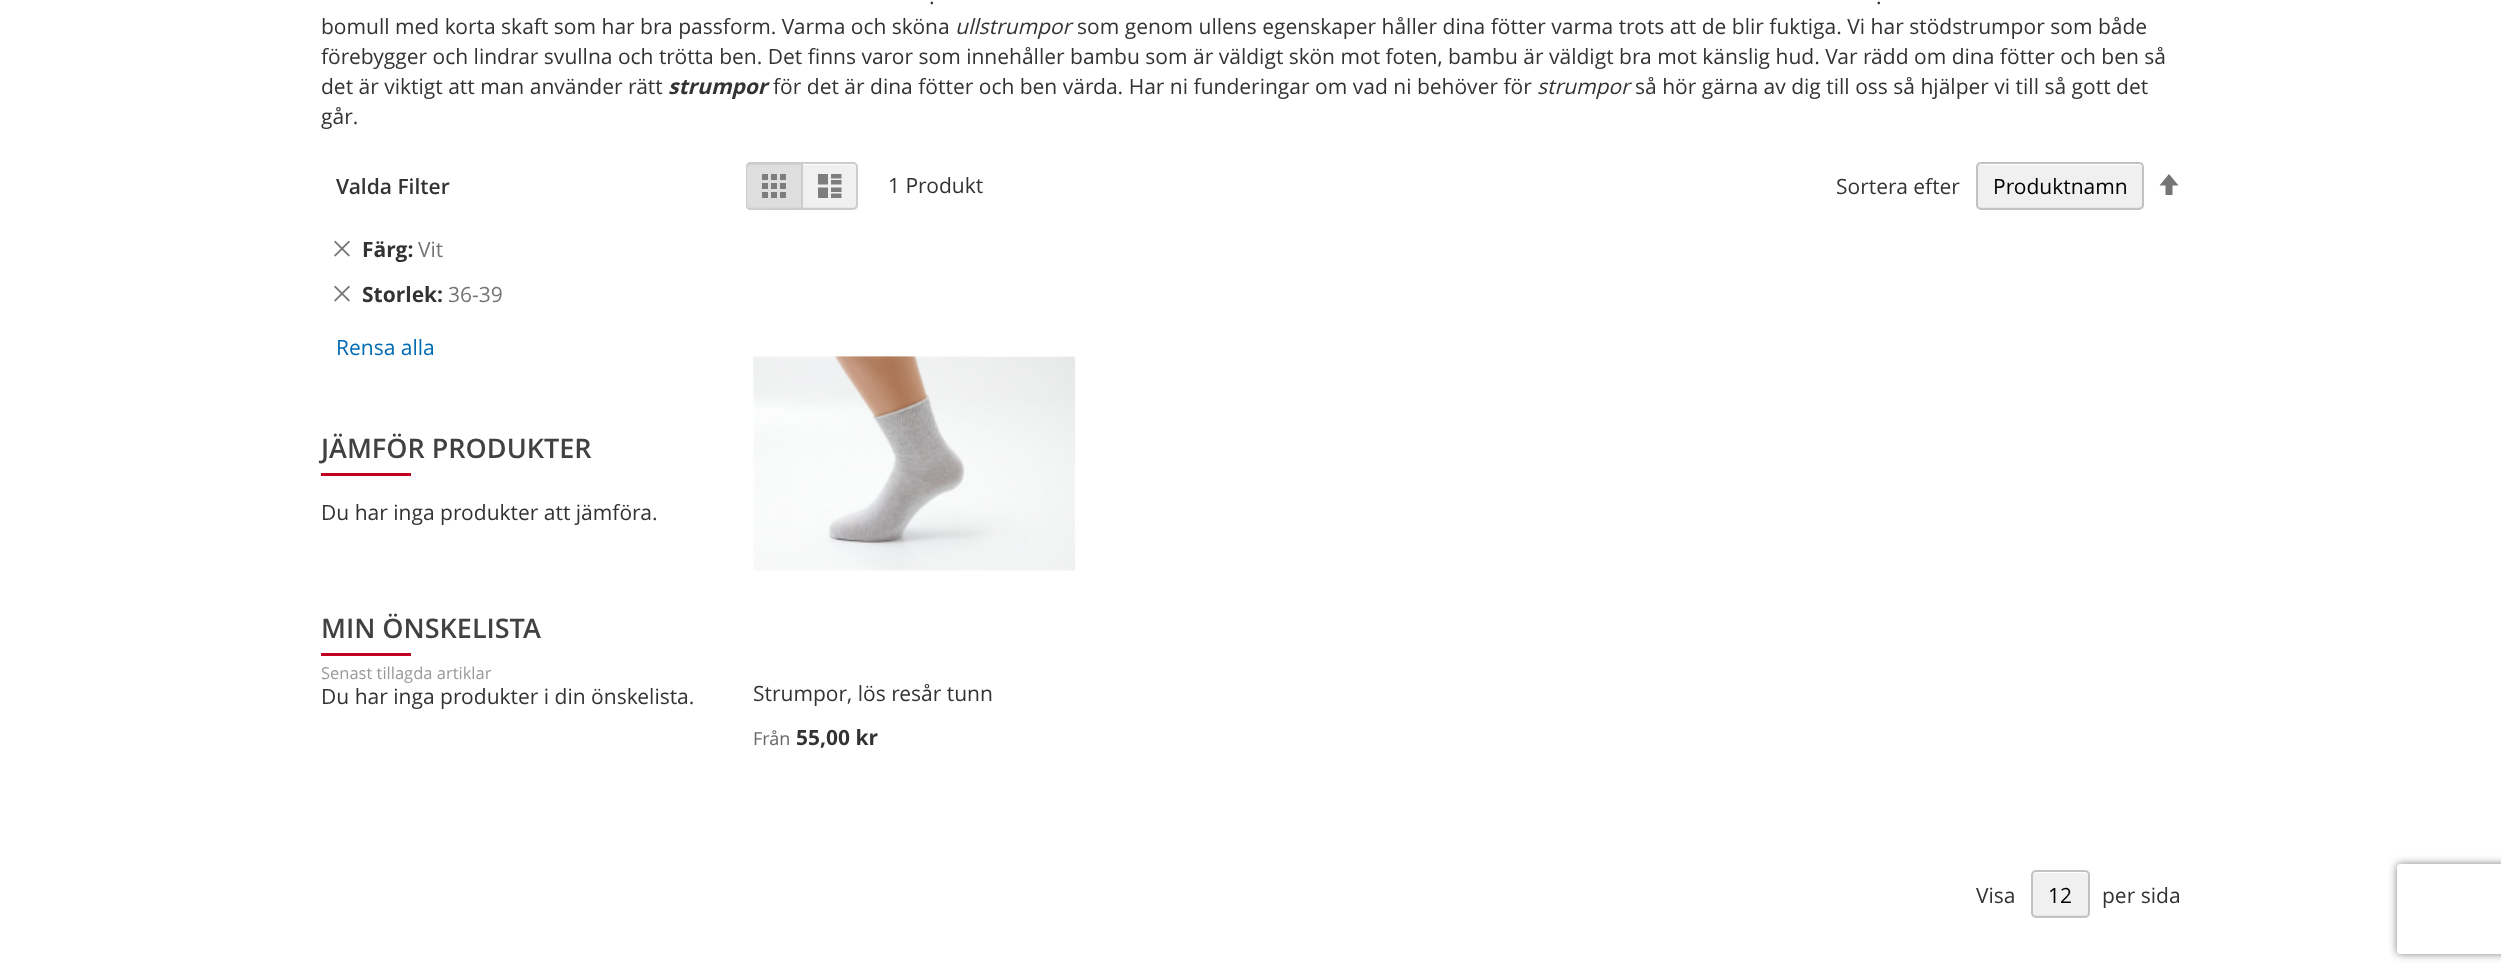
async function draw(canvas) {
	canvas.width = 2501;
	canvas.height = 975;
	const c = canvas.getContext('2d');
	c.miterLimit = 4;
	c.fontKerning = 'normal';
	async function loadImage(src) {
		const img = new Image();
		img.src = src;
		await img.decode();
		return img;
	}

	c.fillStyle = '#fff';
	c.fillRect(0, 0, 2501, 975);
	c.font = '21px Open Sans';
	c.fillStyle = '#333';
	for (const [text, x, y] of [
		['.', 929, 4],
		['.', 1876, 4],
		['bomull med korta skaft som har bra passform. Varma och sköna', 321, 34],
	]) {
		c.fillText(text, x, y);
	}
	c.font = 'italic 21px Open Sans';
	c.fillText('ullstrumpor', 955, 34);
	c.font = '21px Open Sans';
	for (const [text, x, y] of [
		['som genom ullens egenskaper håller dina fötter varma trots att de blir fuktiga. Vi har stödstrumpor som både', 1077, 34],
		['förebygger och lindrar svullna och trötta ben. Det finns varor som innehåller bambu som är väldigt skön mot foten, bambu är väldigt bra mot känslig hud. Var rädd om dina fötter och ben så', 321, 64],
		['det är viktigt att man använder rätt', 321, 94],
	]) {
		c.fillText(text, x, y);
	}
	c.font = 'italic bold 21px Open Sans';
	c.fillText('strumpor', 668, 94);
	c.font = '21px Open Sans';
	c.fillText('för det är dina fötter och ben värda. Har ni funderingar om vad ni behöver för', 773, 94);
	c.font = 'italic 21px Open Sans';
	c.fillText('strumpor', 1537, 94);
	c.font = '21px Open Sans';
	c.fillText('så hör gärna av dig till oss så hjälper vi till så gott det', 1635, 94);
	c.fillText('går.', 321, 124);
	c.font = '600 21px Open Sans';
	c.fillText('Valda Filter', 336, 194);
	c.drawImage(await loadImage('img1.png'), 334, 240, 16, 17);
	c.font = 'bold 21px Open Sans';
	c.fillText('Färg:', 362, 257);
	c.font = '21px Open Sans';
	c.fillStyle = '#757575';
	c.fillText('Vit', 418, 257);
	c.drawImage(await loadImage('img1.png'), 334, 285, 16, 17);
	c.font = 'bold 21px Open Sans';
	c.fillStyle = '#333';
	c.fillText('Storlek:', 362, 302);
	c.font = '21px Open Sans';
	c.fillStyle = '#757575';
	c.fillText('36-39', 448, 302);
	c.fillStyle = '#006bb4';
	c.fillText('Rensa alla', 336, 355);
	c.fillStyle = '#dedede';
	c.beginPath();
	c.roundRect(746, 162, 55, 48, [5, 0, 0, 5]);
	c.fill();
	c.fillStyle = '#d9d9d9';
	c.beginPath();
	c.moveTo(747, 205);
	c.lineTo(747, 206);
	c.bezierCurveTo(747, 208, 748, 209, 750, 209);
	c.lineTo(801, 209);
	c.lineTo(801, 207);
	c.lineTo(760, 207);
	c.bezierCurveTo(757, 207, 751, 208, 748, 206);
	c.closePath();
	c.fill();
	c.fillStyle = '#d0d0d0';
	c.beginPath();
	c.moveTo(750, 165);
	c.lineTo(801, 165);
	c.lineTo(801, 164);
	c.lineTo(750, 164);
	c.bezierCurveTo(748, 164, 747, 165, 747, 167);
	c.lineTo(748, 166);
	c.closePath();
	c.fill();
	c.fillStyle = '#ccc';
	c.beginPath();
	c.moveTo(750, 162);
	c.lineTo(801, 162);
	c.lineTo(801, 210);
	c.lineTo(750, 210);
	c.bezierCurveTo(748, 210, 746, 208, 746, 206);
	c.lineTo(746, 166);
	c.bezierCurveTo(746, 164, 748, 162, 750, 162);
	c.closePath();
	c.moveTo(750, 164);
	c.lineTo(801, 164);
	c.lineTo(801, 208);
	c.bezierCurveTo(795, 208, 750, 209, 748, 208);
	c.lineTo(747, 206);
	c.lineTo(747, 166);
	c.lineTo(748, 164);
	c.closePath();
	c.fill('evenodd');
	c.drawImage(await loadImage('img2.png'), 762, 174, 24, 24);
	c.fillStyle = '#f0f0f0';
	c.beginPath();
	c.roundRect(801, 162, 57, 48, [0, 5, 5, 0]);
	c.fill();
	c.fillStyle = '#e5e5e5';
	c.beginPath();
	c.moveTo(803, 207);
	c.lineTo(803, 209);
	c.lineTo(854, 209);
	c.bezierCurveTo(856, 209, 857, 208, 857, 206);
	c.lineTo(857, 167);
	c.bezierCurveTo(857, 166, 857, 165, 856, 165);
	c.lineTo(856, 204);
	c.bezierCurveTo(856, 209, 849, 207, 846, 207);
	c.closePath();
	c.fill();
	c.fillStyle = '#fff';
	c.beginPath();
	c.moveTo(803, 164);
	c.lineTo(803, 165);
	c.lineTo(846, 165);
	c.bezierCurveTo(849, 165, 856, 163, 856, 168);
	c.lineTo(856, 208);
	c.bezierCurveTo(857, 208, 857, 207, 857, 206);
	c.lineTo(857, 167);
	c.bezierCurveTo(857, 165, 856, 164, 854, 164);
	c.closePath();
	c.fill();
	c.beginPath();
	c.roundRect(802, 163, 55, 46, [0, 4, 4, 0]);
	c.strokeStyle = '#ccc';
	c.lineWidth = 2;
	c.stroke();
	c.drawImage(await loadImage('img3.png'), 818, 174, 24, 24);
	c.fillStyle = '#333';
	c.fillText('1 Produkt', 888, 193);
	c.fillText('Sortera efter', 1836, 194);
	c.fillStyle = '#f0f0f0';
	c.beginPath();
	c.roundRect(1977, 164, 165, 45, 3);
	c.fill();
	c.fillStyle = '#cccccc4d';
	c.beginPath();
	c.moveTo(1977, 204);
	c.lineTo(1977, 206);
	c.bezierCurveTo(1977, 208, 1978, 209, 1980, 209);
	c.lineTo(2139, 209);
	c.bezierCurveTo(2141, 209, 2142, 208, 2142, 206);
	c.lineTo(2142, 204);
	c.bezierCurveTo(2142, 206, 2141, 207, 2139, 207);
	c.lineTo(1980, 207);
	c.bezierCurveTo(1978, 207, 1977, 206, 1977, 204);
	c.closePath();
	c.fill();
	c.fillStyle = '#fff';
	c.beginPath();
	c.moveTo(1980, 165);
	c.lineTo(2139, 165);
	c.bezierCurveTo(2141, 165, 2142, 166, 2142, 168);
	c.bezierCurveTo(2142, 166, 2141, 164, 2139, 164);
	c.lineTo(1980, 164);
	c.bezierCurveTo(1978, 164, 1977, 166, 1977, 168);
	c.bezierCurveTo(1977, 166, 1978, 165, 1980, 165);
	c.closePath();
	c.fill();
	c.beginPath();
	c.roundRect(1977, 163, 166, 46, 4);
	c.strokeStyle = '#c2c2c2';
	c.stroke();
	c.fillStyle = '#000';
	c.fillText('Produktnamn', 1993, 194);
	c.fillStyle = '#757575';
	c.beginPath();
	c.moveTo(2169, 174);
	c.lineTo(2159.5, 185.5);
	c.lineTo(2165.5, 185.5);
	c.lineTo(2165.5, 195);
	c.lineTo(2172.5, 195);
	c.lineTo(2172.5, 185.5);
	c.lineTo(2178.5, 185.5);
	c.closePath();
	c.fill();
	c.drawImage(await loadImage('img4.png'), 753, 356, 323, 215);
	c.fillStyle = '#333';
	c.fillText('Strumpor, lös resår tunn', 753, 701);
	c.font = '18px Open Sans';
	c.fillStyle = '#666';
	c.fillText('Från', 753, 745);
	c.font = 'bold 21px Open Sans';
	c.fillStyle = '#333';
	c.fillText('55,00 kr', 796, 745);
	c.font = '21px Open Sans';
	c.fillText('Visa', 1976, 903);
	c.fillStyle = '#f0f0f0';
	c.beginPath();
	c.roundRect(2033, 872, 55, 45, 3);
	c.fill();
	c.fillStyle = '#cccccc4d';
	c.beginPath();
	c.moveTo(2033, 914);
	c.bezierCurveTo(2033, 916, 2034, 917, 2036, 917);
	c.lineTo(2085, 917);
	c.bezierCurveTo(2087, 917, 2088, 916, 2088, 914);
	c.lineTo(2088, 912);
	c.bezierCurveTo(2088, 914, 2087, 915, 2085, 915);
	c.lineTo(2036, 915);
	c.bezierCurveTo(2035, 915, 2034, 915, 2033, 914);
	c.closePath();
	c.fill();
	c.fillStyle = '#fff';
	c.beginPath();
	c.moveTo(2036, 873);
	c.lineTo(2085, 873);
	c.bezierCurveTo(2087, 873, 2088, 874, 2088, 876);
	c.lineTo(2088, 875);
	c.bezierCurveTo(2088, 873, 2087, 872, 2085, 872);
	c.lineTo(2036, 872);
	c.bezierCurveTo(2035, 872, 2034, 873, 2033, 874);
	c.closePath();
	c.fill();
	c.beginPath();
	c.roundRect(2032, 871, 57, 46, 4);
	c.stroke();
	c.fillStyle = '#000';
	c.fillText('12', 2048, 903);
	c.fillStyle = '#333';
	c.fillText('per sida', 2102, 903);
	c.font = '600 27px Open Sans';
	c.fillStyle = '#414141';
	c.fillText('JÄMFÖR PRODUKTER', 321, 458);
	c.fillStyle = '#c10020';
	c.fillRect(321, 473, 90, 3);
	c.font = '21px Open Sans';
	c.fillStyle = '#333';
	c.fillText('Du har inga produkter att jämföra.', 321, 520);
	c.font = '600 27px Open Sans';
	c.fillStyle = '#414141';
	c.fillText('MIN ÖNSKELISTA', 321, 638);
	c.fillStyle = '#c10020';
	c.fillRect(321, 653, 90, 3);
	c.font = '16.5px Open Sans';
	c.fillStyle = '#999';
	c.fillText('Senast tillagda artiklar', 321, 679);
	c.font = '21px Open Sans';
	c.fillStyle = '#333';
	c.fillText('Du har inga produkter i din önskelista.', 321, 704);
	c.save();
	c.beginPath();
	c.moveTo(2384, 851);
	c.lineTo(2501, 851);
	c.lineTo(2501, 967);
	c.lineTo(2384, 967);
	c.closePath();
	c.moveTo(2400, 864);
	c.lineTo(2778, 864);
	c.bezierCurveTo(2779.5, 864, 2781, 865.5, 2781, 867);
	c.lineTo(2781, 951);
	c.bezierCurveTo(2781, 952.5, 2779.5, 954, 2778, 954);
	c.lineTo(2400, 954);
	c.bezierCurveTo(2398.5, 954, 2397, 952.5, 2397, 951);
	c.lineTo(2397, 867);
	c.bezierCurveTo(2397, 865.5, 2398.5, 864, 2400, 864);
	c.closePath();
	c.clip('evenodd');
	c.fillStyle = '#808080';
	c.filter = 'blur(4px)';
	c.beginPath();
	c.roundRect(2397, 864, 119, 90, 3);
	c.fill();
	c.filter = 'none';
	c.restore();
}

draw(document.querySelector('canvas'));
